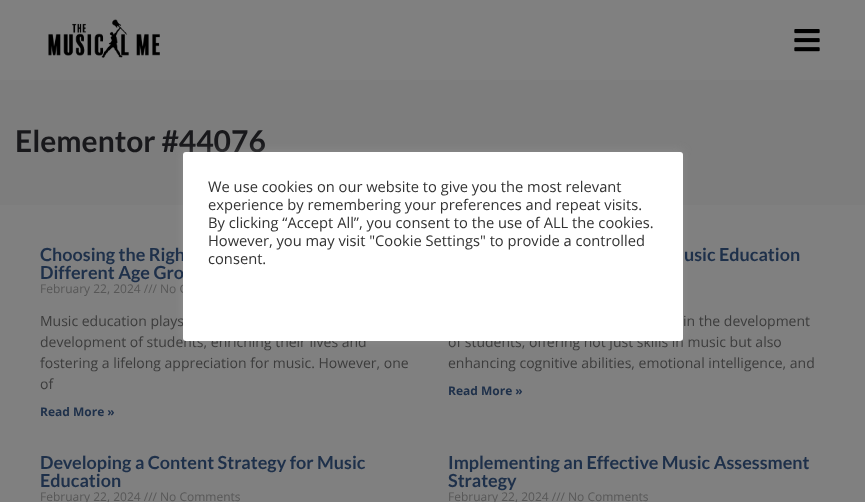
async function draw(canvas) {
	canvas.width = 865;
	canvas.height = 502;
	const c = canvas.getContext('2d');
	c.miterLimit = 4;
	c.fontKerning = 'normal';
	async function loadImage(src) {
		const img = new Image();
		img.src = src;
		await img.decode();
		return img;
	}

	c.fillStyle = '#808080';
	c.fillRect(0, 0, 865, 502);
	c.drawImage(await loadImage('img1.png'), 48, 19, 112, 39);
	c.drawImage(await loadImage('img2.png'), 794, 29, 26, 23);
	c.fillStyle = '#7d7d7d';
	c.fillRect(0, 80, 865, 125);
	c.font = 'bold 30px Lato';
	c.fillStyle = '#18181b';
	c.fillText('Elementor #44076', 15, 152);
	c.fillStyle = '#acabab4d';
	c.filter = 'blur(5px)';
	c.beginPath();
	c.roundRect(183, 151, 500, 189, 3);
	c.fill();
	c.filter = 'none';
	c.font = 'bold 18px Lato';
	c.fillStyle = '#1e304a';
	c.fillText('Choosing the Righ', 40, 261);
	c.fillText('Different Age Gro', 40, 279);
	c.font = '12px Open Sans';
	c.fillStyle = '#575757';
	c.fillText('February 22, 2024 /// No C', 40, 293);
	c.font = '14px Open Sans';
	c.fillStyle = '#3c3c3c';
	for (const [text, x, y] of [
		['Music education plays', 40, 326],
		['development of students, enriching their lives and', 40, 347],
		['of students, offering not just skills in music but also', 448, 347],
	]) {
		c.fillText(text, x, y);
	}
	c.fillStyle = '#fff';
	c.beginPath();
	c.roundRect(183, 152, 500, 189, 3);
	c.fill();
	c.font = '14.7px Open Sans';
	c.fillStyle = '#333';
	for (const [text, x, y] of [
		['We use cookies on our website to give you the most relevant', 208, 192],
		['experience by remembering your preferences and repeat visits.', 208, 210],
		['By clicking “Accept All”, you consent to the use of ALL the cookies.', 208, 228],
		['However, you may visit "Cookie Settings" to provide a controlled', 208, 246],
		['consent.', 208, 264],
	]) {
		c.fillText(text, x, y);
	}
	c.font = '14px Open Sans';
	c.fillStyle = '#3c3c3c';
	c.fillText('fostering a lifelong appreciation for music. However, one', 40, 368);
	c.fillText('of', 40, 389);
	c.font = 'bold 12px Open Sans';
	c.fillStyle = '#1e304a';
	c.fillText('Read More »', 40, 416);
	c.font = 'bold 18px Lato';
	c.fillText('usic Education', 684, 261);
	c.font = '14px Open Sans';
	c.fillStyle = '#3c3c3c';
	c.fillText('in the development', 683, 326);
	c.fillText('enhancing cognitive abilities, emotional intelligence, and', 448, 368);
	c.font = 'bold 12px Open Sans';
	c.fillStyle = '#1e304a';
	c.fillText('Read More »', 448, 395);
	c.font = 'bold 18px Lato';
	c.fillText('Developing a Content Strategy for Music', 40, 469);
	c.fillText('Education', 40, 487);
	c.font = '12px Open Sans';
	c.fillStyle = '#575757';
	c.fillText('February 22, 2024 /// No Comments', 40, 501);
	c.font = 'bold 18px Lato';
	c.fillStyle = '#1e304a';
	c.fillText('Implementing an Effective Music Assessment', 448, 469);
	c.fillText('Strategy', 448, 487);
	c.font = '12px Open Sans';
	c.fillStyle = '#575757';
	c.fillText('February 22, 2024 /// No Comments', 448, 501);
}

draw(document.querySelector('canvas'));
